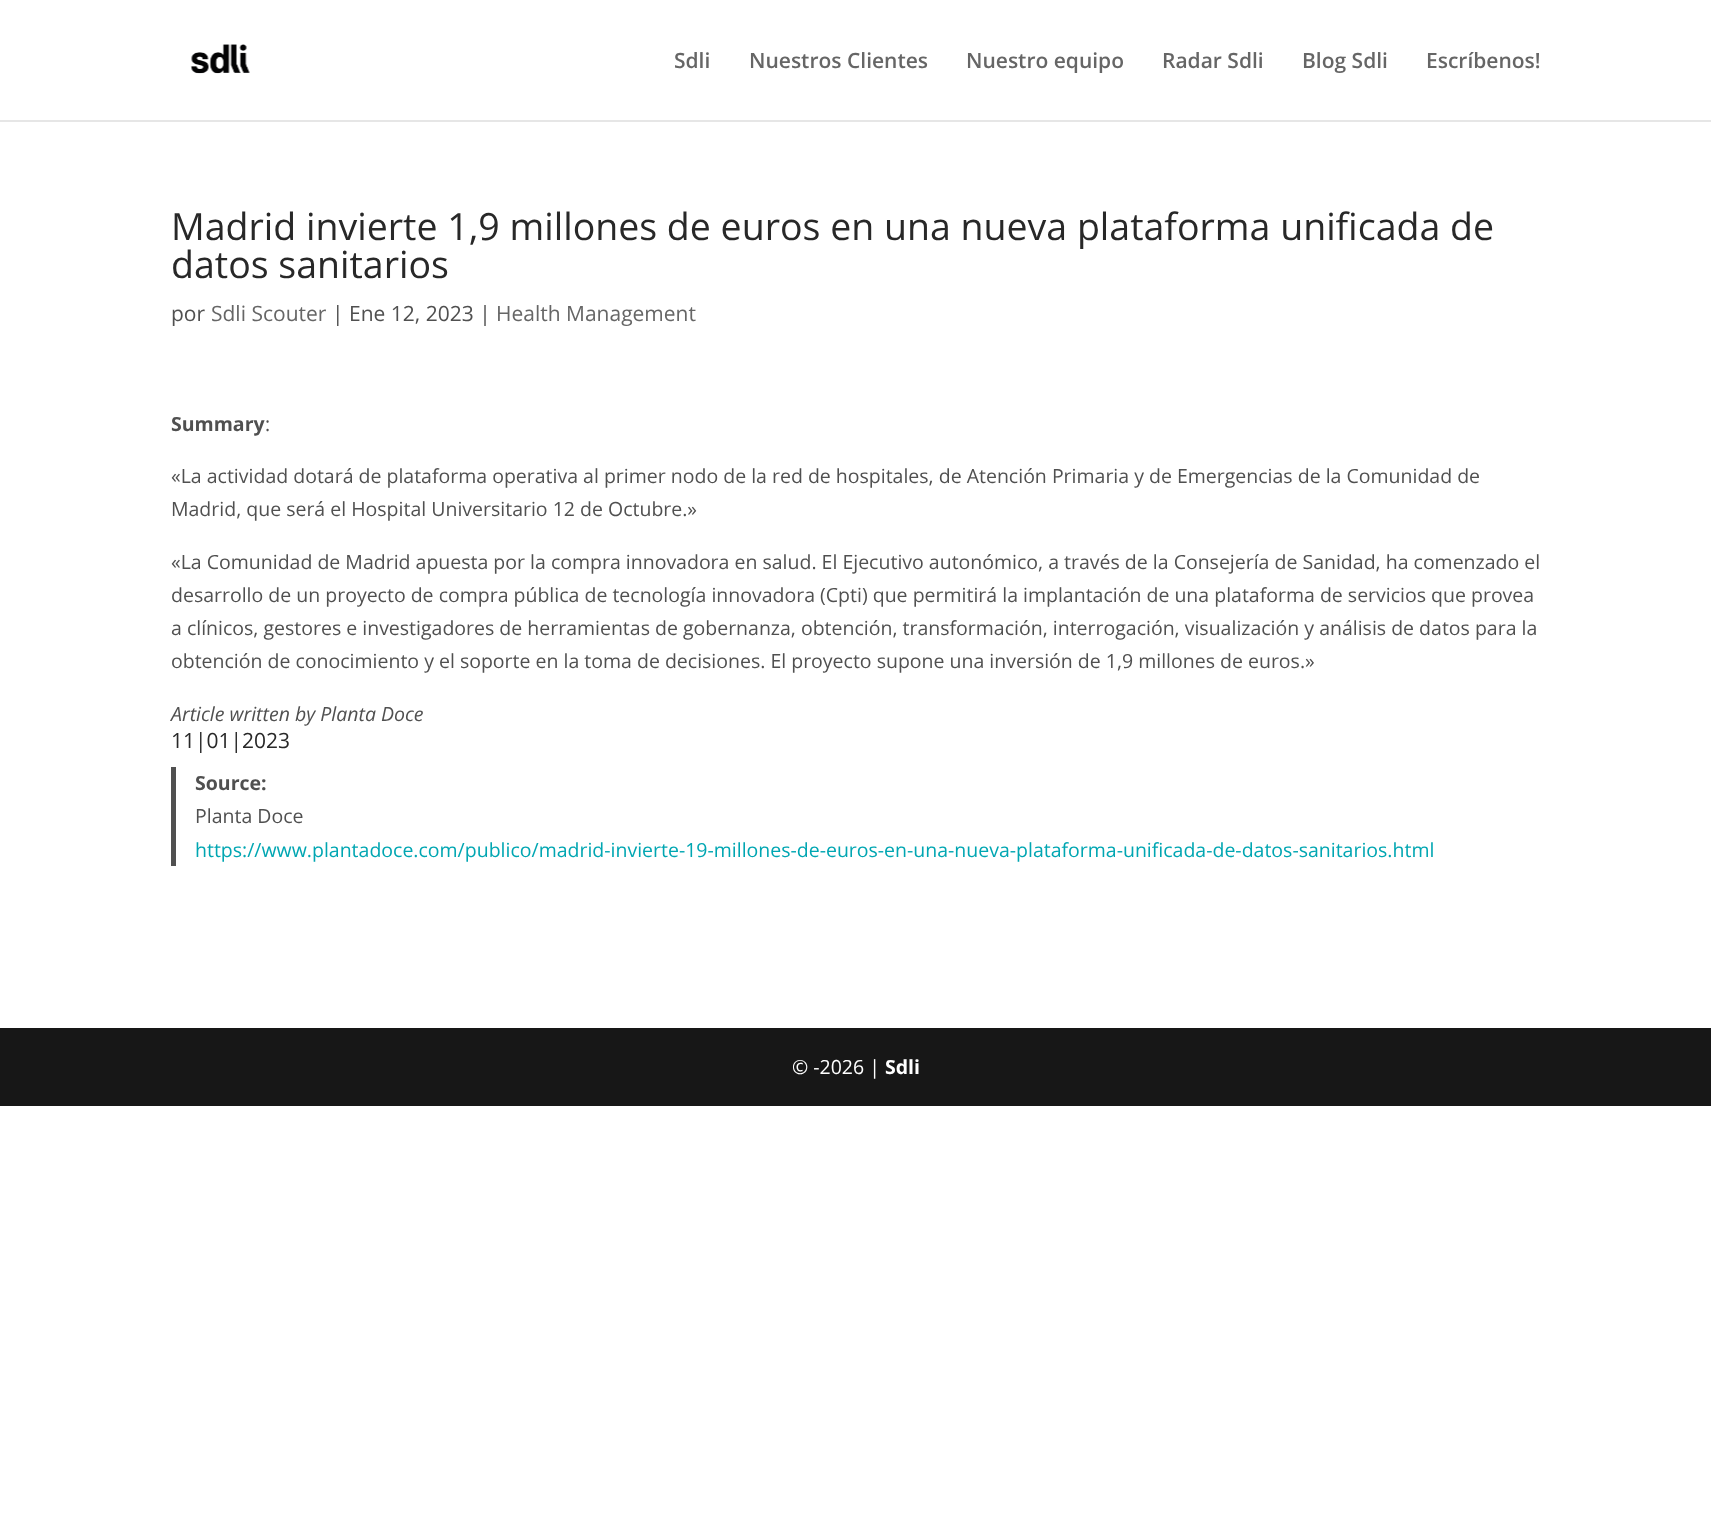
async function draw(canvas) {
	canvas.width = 1711;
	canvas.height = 1517;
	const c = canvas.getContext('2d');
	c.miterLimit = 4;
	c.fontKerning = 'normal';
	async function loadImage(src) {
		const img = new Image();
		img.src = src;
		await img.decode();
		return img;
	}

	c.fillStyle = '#fff';
	c.fillRect(0, 0, 1711, 1517);
	c.fillStyle = '#e6e6e6';
	c.beginPath();
	c.moveTo(0, 120);
	c.lineTo(0, 122);
	c.lineTo(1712, 122);
	c.lineTo(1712, 2);
	c.lineTo(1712, 120);
	c.closePath();
	c.fill();
	c.drawImage(await loadImage('img1.png'), 190, 44, 60, 30);
	c.font = '600 21px Open Sans';
	c.fillStyle = '#666';
	for (const [text, x, y] of [
		['Sdli', 674, 68],
		['Nuestros Clientes', 749, 68],
		['Nuestro equipo', 966, 68],
		['Radar Sdli', 1162, 68],
		['Blog Sdli', 1302, 68],
		['Escríbenos!', 1426, 68],
	]) {
		c.fillText(text, x, y);
	}
	c.font = '37.5px Open Sans';
	c.fillStyle = '#282828';
	c.fillText('Madrid invierte 1,9 millones de euros en una nueva plataforma unificada de', 171, 240);
	c.fillText('datos sanitarios', 171, 278);
	c.font = '21px Open Sans';
	c.fillStyle = '#505050';
	c.fillText('por', 171, 321);
	c.fillStyle = '#666';
	c.fillText('Sdli Scouter', 211, 321);
	c.fillStyle = '#505050';
	c.fillText('| Ene 12, 2023 |', 332, 321);
	c.fillStyle = '#666';
	c.fillText('Health Management', 496, 321);
	c.font = 'bold 19.5px Open Sans';
	c.fillStyle = '#505050';
	c.fillText('Summary', 171, 431);
	c.font = '19.5px Open Sans';
	for (const [text, x, y] of [
		[':', 265, 431],
		['«La actividad dotará de plataforma operativa al primer nodo de la red de hospitales, de Atención Primaria y de Emergencias de la Comunidad de', 171, 483],
		['Madrid, que será el Hospital Universitario 12 de Octubre.»', 171, 516],
		['«La Comunidad de Madrid apuesta por la compra innovadora en salud. El Ejecutivo autonómico, a través de la Consejería de Sanidad, ha comenzado el', 171, 569],
		['desarrollo de un proyecto de compra pública de tecnología innovadora (Cpti) que permitirá la implantación de una plataforma de servicios que provea', 171, 602],
		['a clínicos, gestores e investigadores de herramientas de gobernanza, obtención, transformación, interrogación, visualización y análisis de datos para la', 171, 635],
		['obtención de conocimiento y el soporte en la toma de decisiones. El proyecto supone una inversión de 1,9 millones de euros.»', 171, 668],
	]) {
		c.fillText(text, x, y);
	}
	c.font = 'italic 19.5px Open Sans';
	c.fillText('Article written by Planta Doce', 171, 721);
	c.font = '21px Open Sans';
	c.fillStyle = '#282828';
	c.fillText('11|01|2023', 171, 748);
	c.fillStyle = '#505050';
	c.fillRect(171, 767, 5, 99);
	c.font = 'bold 19.5px Open Sans';
	c.fillText('Source:', 195, 790);
	c.font = '19.5px Open Sans';
	c.fillText('Planta Doce', 195, 823);
	c.fillStyle = '#00a6b2';
	c.fillText('https://www.plantadoce.com/publico/madrid-invierte-19-millones-de-euros-en-una-nueva-plataforma-unificada-de-datos-sanitarios.html', 195, 857);
	c.fillStyle = '#171717';
	c.fillRect(0, 1028, 1711, 78);
	c.fillStyle = '#fff';
	c.fillText('© -2026 |', 792, 1074);
	c.font = 'bold 19.5px Open Sans';
	c.fillText('Sdli', 885, 1074);
}

draw(document.querySelector('canvas'));
